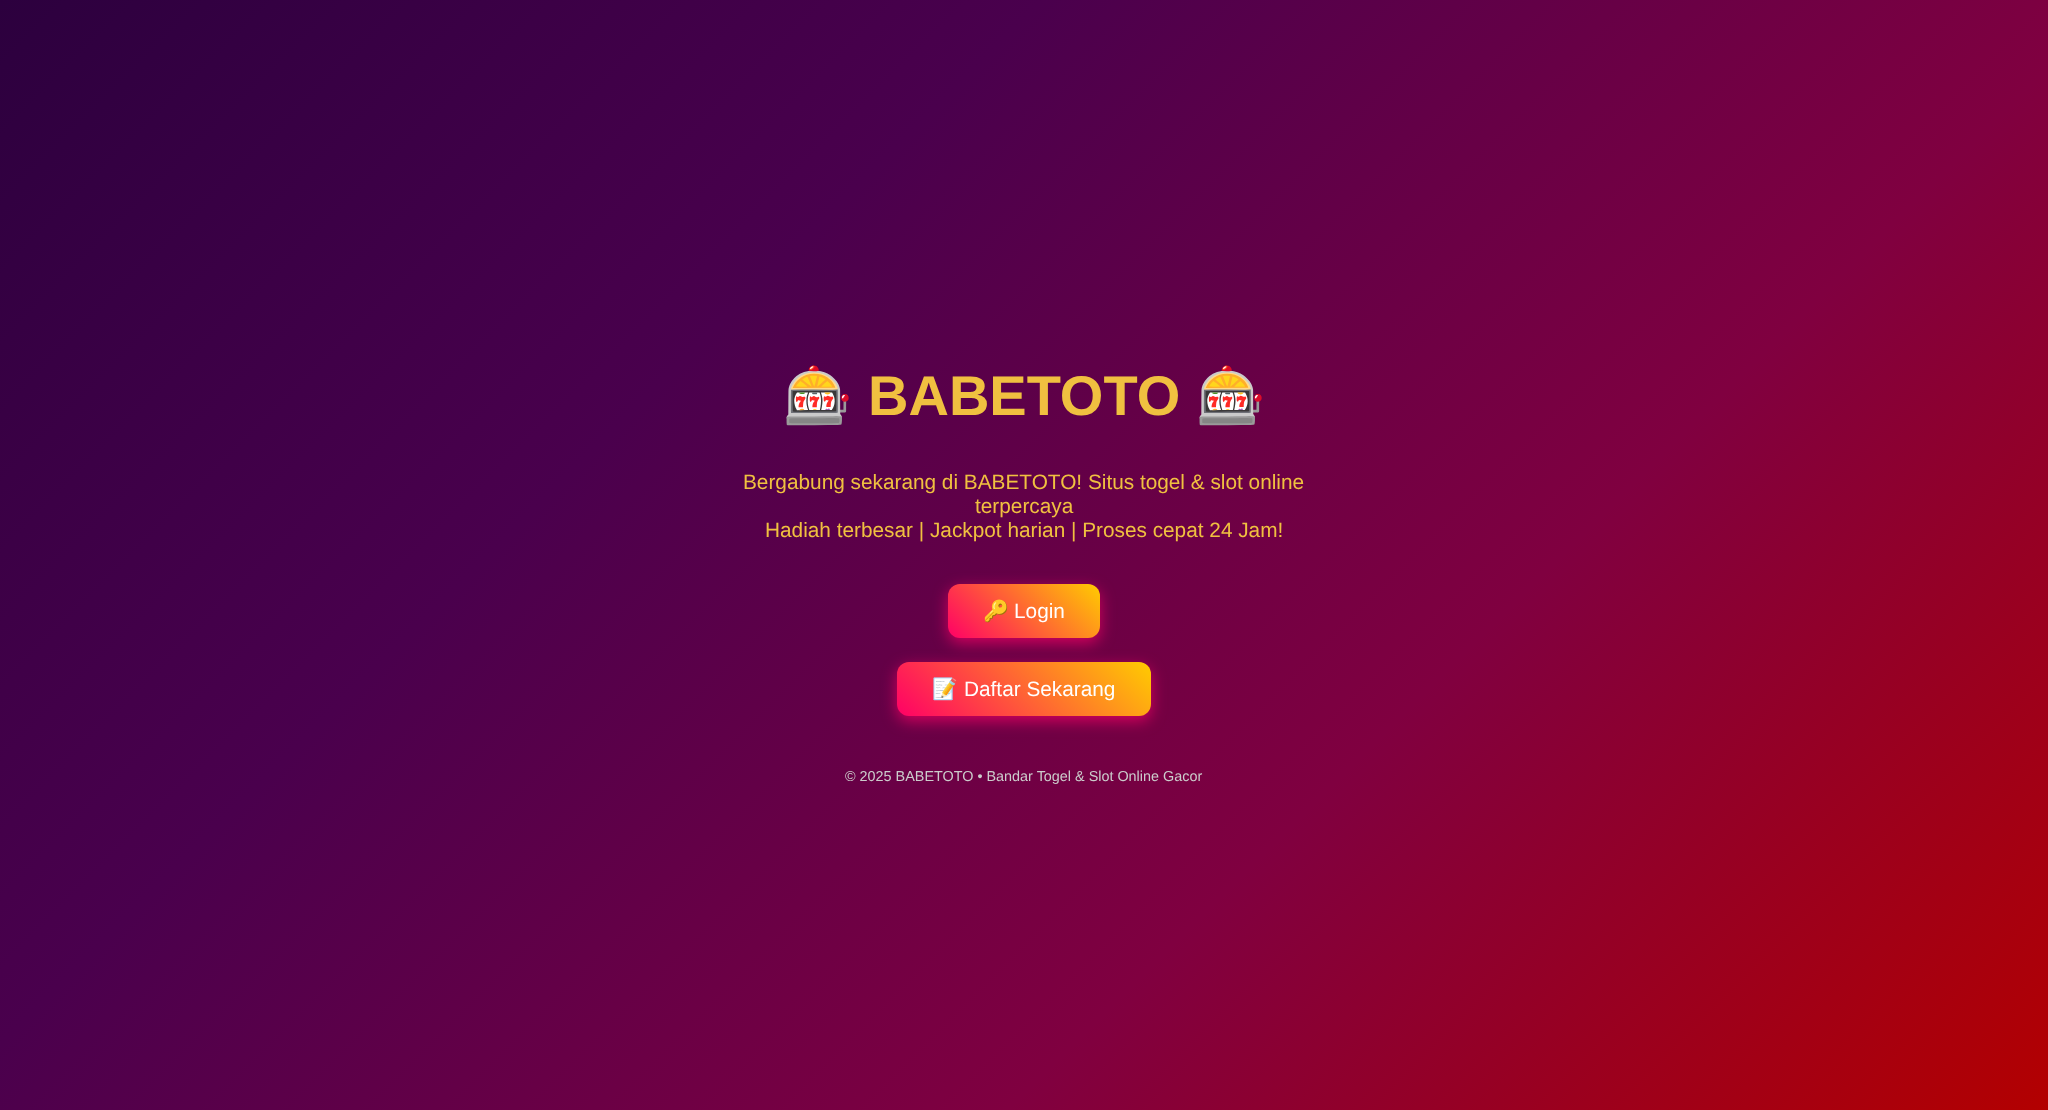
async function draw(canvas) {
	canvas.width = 2048;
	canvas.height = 1110;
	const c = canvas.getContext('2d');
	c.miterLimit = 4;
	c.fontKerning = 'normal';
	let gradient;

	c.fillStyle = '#fff';
	c.fillRect(0, 0, 2048, 1110);
	gradient = c.createLinearGradient(234, -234, 1814, 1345);
	gradient.addColorStop(0, '#2c003e');
	gradient.addColorStop(0.33, '#4a004d');
	gradient.addColorStop(0.67, '#800040');
	gradient.addColorStop(1, '#b30000');
	c.fillStyle = gradient;
	c.fillRect(0, 0, 2048, 1110);
	c.font = 'bold 56px Noto Color Emoji';
	c.fillStyle = '#f0c040';
	c.fillText('🎰', 783, 415);
	c.font = 'bold 56px Liberation Sans';
	c.fillText('BABETOTO', 868, 415);
	c.font = 'bold 56px Noto Color Emoji';
	c.fillText('🎰', 1196, 415);
	c.font = '20.8px Liberation Sans';
	for (const [text, x, y] of [
		['Bergabung sekarang di BABETOTO! Situs togel & slot online', 743, 489],
		['terpercaya', 975, 513],
		['Hadiah terbesar | Jackpot harian | Proses cepat 24 Jam!', 765, 537],
	]) {
		c.fillText(text, x, y);
	}
	c.fillStyle = '#ff0066b3';
	c.filter = 'blur(7.5px)';
	c.beginPath();
	c.roundRect(948, 589, 152, 54, 12);
	c.fill();
	c.filter = 'none';
	gradient = c.createLinearGradient(973, 663, 1076, 560);
	gradient.addColorStop(0, '#f06');
	gradient.addColorStop(1, '#fc0');
	c.fillStyle = gradient;
	c.beginPath();
	c.roundRect(948, 584, 152, 54, 12);
	c.fill();
	c.font = '20.8px Noto Color Emoji';
	c.fillStyle = '#fff';
	c.fillText('🔑', 983, 618);
	c.font = '20.8px Liberation Sans';
	c.fillText('Login', 1014, 618);
	c.fillStyle = '#ff0066b3';
	c.filter = 'blur(7.5px)';
	c.beginPath();
	c.roundRect(897, 667, 254, 54, 12);
	c.fill();
	c.filter = 'none';
	gradient = c.createLinearGradient(947, 766, 1101, 612);
	gradient.addColorStop(0, '#f06');
	gradient.addColorStop(1, '#fc0');
	c.fillStyle = gradient;
	c.beginPath();
	c.roundRect(897, 662, 254, 54, 12);
	c.fill();
	c.font = '20.8px Noto Color Emoji';
	c.fillStyle = '#fff';
	c.fillText('📝', 932, 696);
	c.font = '20.8px Liberation Sans';
	c.fillText('Daftar Sekarang', 964, 696);
	c.font = '14.4px Liberation Sans';
	c.fillStyle = '#ccc';
	c.fillText('© 2025 BABETOTO • Bandar Togel & Slot Online Gacor', 845, 781);
}

draw(document.querySelector('canvas'));
